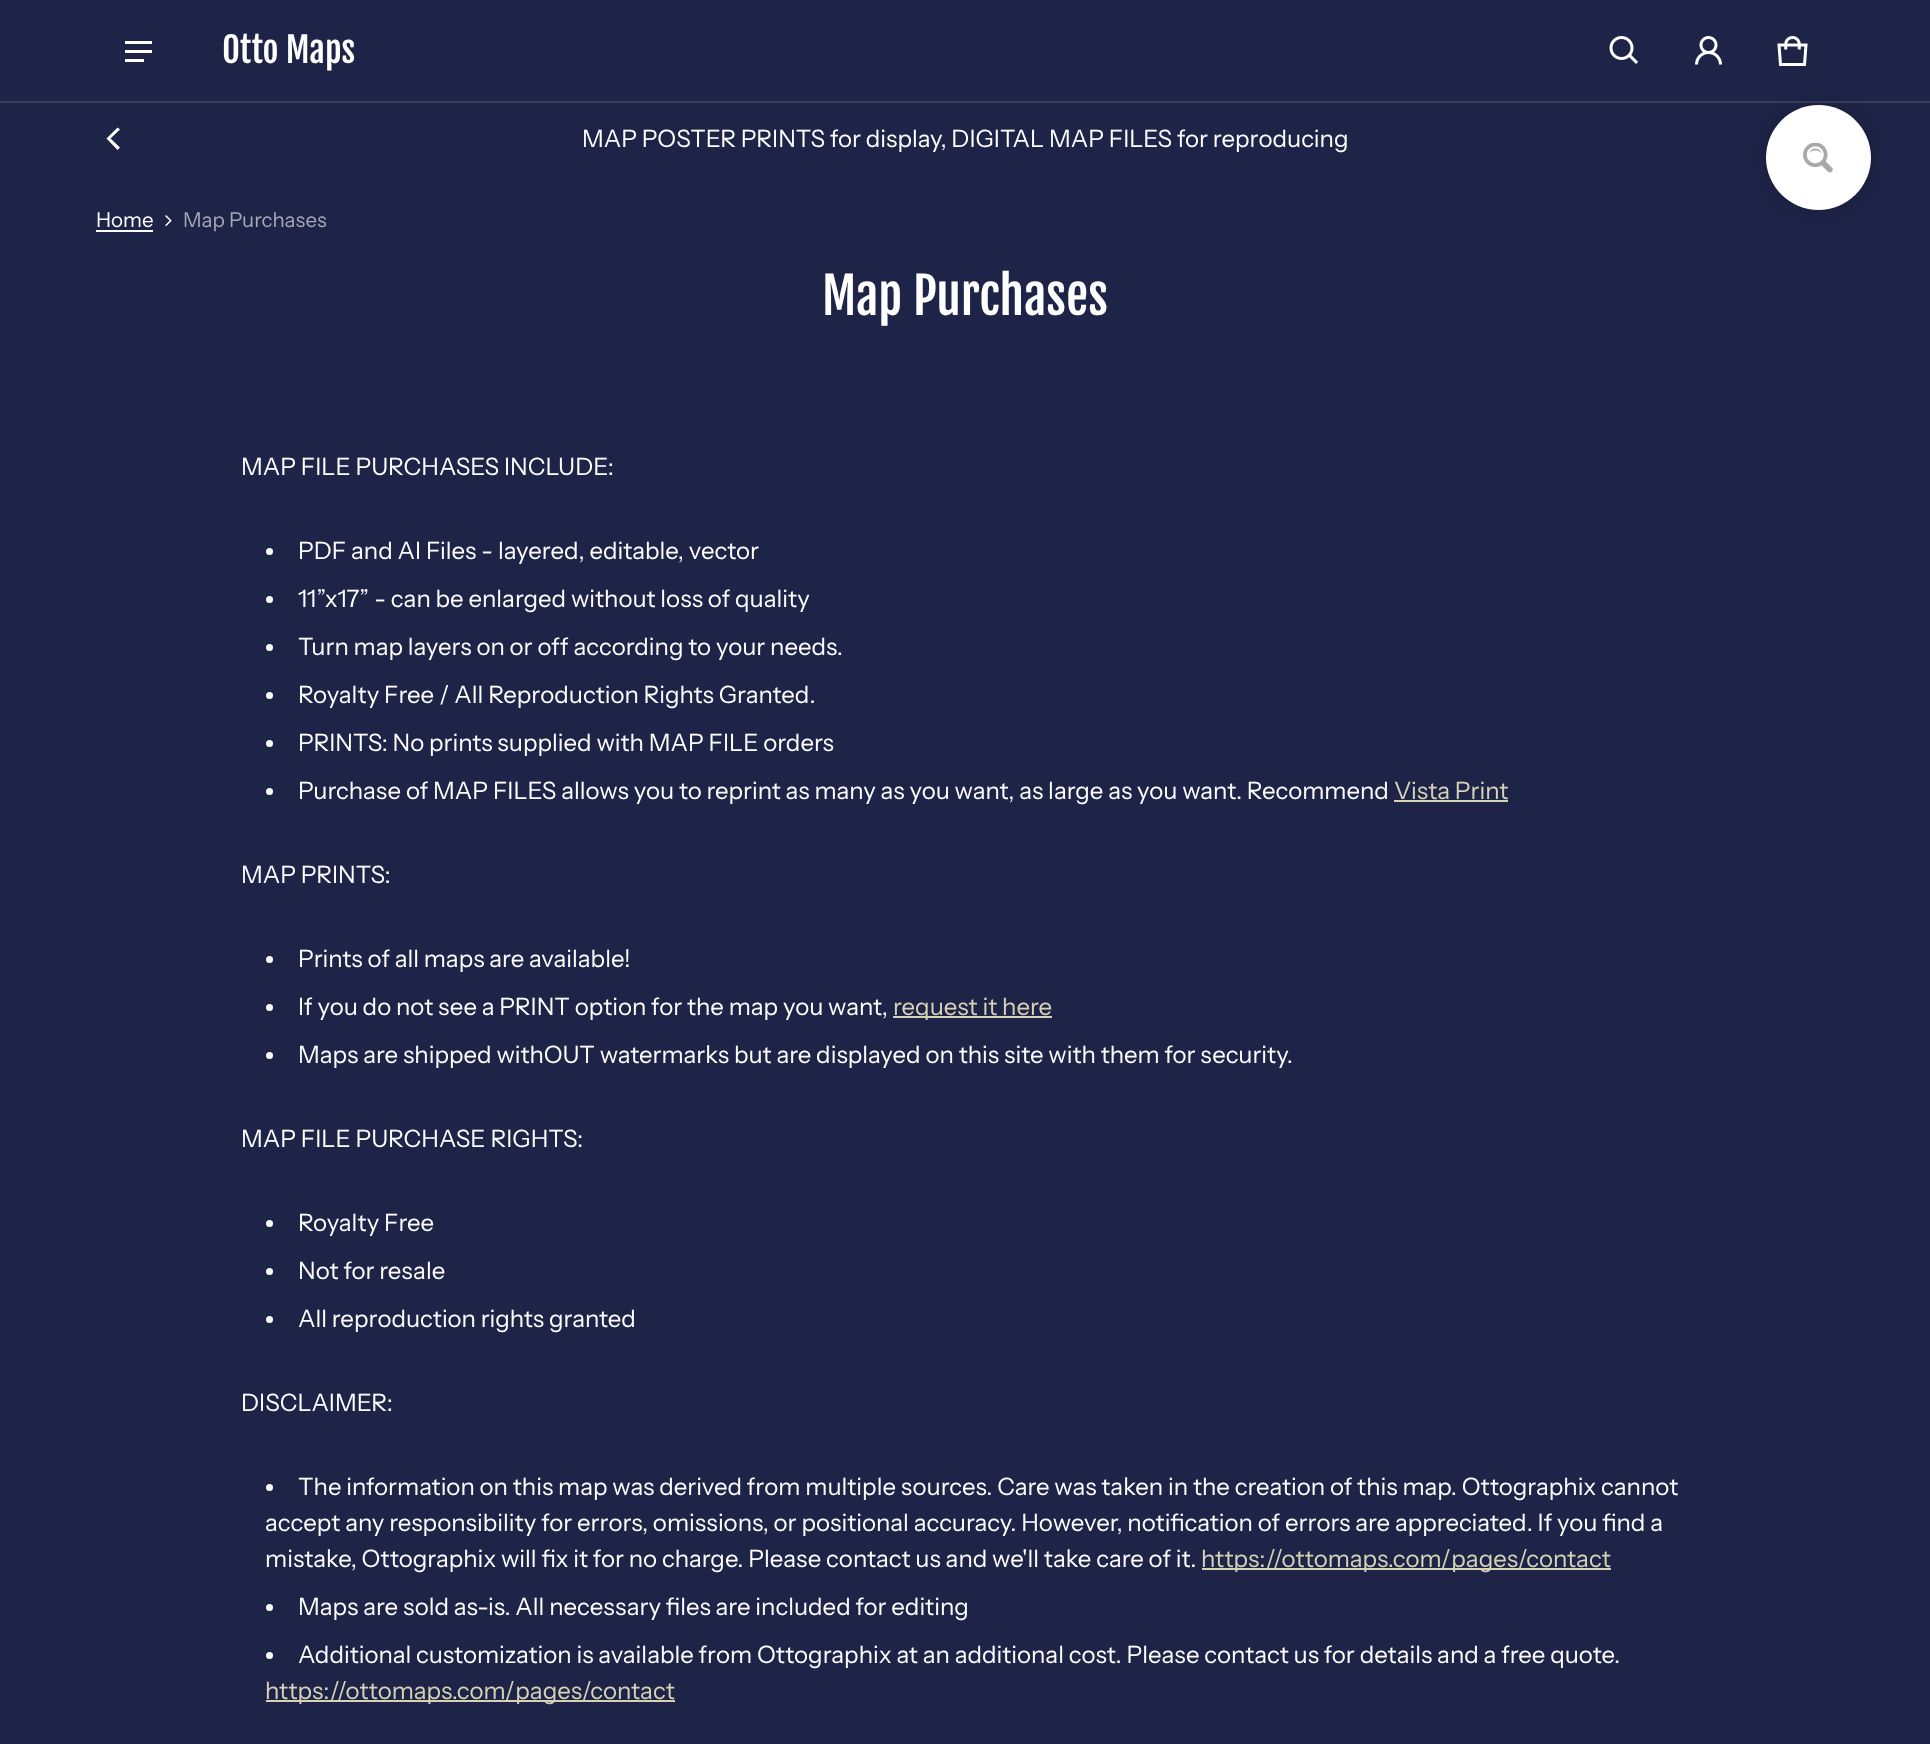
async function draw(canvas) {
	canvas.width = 1930;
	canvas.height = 1744;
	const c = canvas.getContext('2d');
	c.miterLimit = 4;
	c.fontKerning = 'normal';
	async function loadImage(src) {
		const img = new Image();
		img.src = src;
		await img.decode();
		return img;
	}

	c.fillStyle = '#1e2447';
	c.fillRect(0, 0, 1930, 1744);
	for (const [x, y, w, h, color] of [
		[0, 101, 1930, 2, '#393e5d'],
		[125, 41, 27, 3, '#fff'],
		[125, 50, 27, 3, '#fff'],
		[125, 59, 19, 3, '#fff'],
	]) {
		c.fillStyle = color;
		c.fillRect(x, y, w, h);
	}
	c.font = '34.5px Fjalla One';
	c.fillText('Otto Maps', 222, 63);
	c.drawImage(await loadImage('img1.png'), 1609, 36, 29, 28);
	c.drawImage(await loadImage('img2.png'), 1695, 36, 27, 29);
	c.drawImage(await loadImage('img3.png'), 1777, 36, 31, 30);
	c.beginPath();
	c.moveTo(110.5, 138.5);
	c.lineTo(120, 129.5);
	c.lineTo(117.5, 127.5);
	c.lineTo(106.5, 138.5);
	c.lineTo(117.5, 150);
	c.lineTo(120, 147.5);
	c.closePath();
	c.fill('evenodd');
	c.font = '24px Instrument Sans';
	c.fillText('MAP POSTER PRINTS for display, DIGITAL MAP FILES for reproducing', 582, 147);
	c.fillStyle = '#000';
	c.filter = 'blur(11px)';
	c.beginPath();
	c.roundRect(1778, 117, 81, 81, 40.5);
	c.fill();
	c.filter = 'none';
	c.fillStyle = '#fff';
	c.beginPath();
	c.arc(1818.5, 157.5, 52.5, 0, 2 * Math.PI);
	c.fill();
	c.drawImage(await loadImage('img4.png'), 1803, 143, 30, 30);
	c.font = '20.5px Instrument Sans';
	c.fillText('Home', 96, 227);
	c.fillRect(96, 230, 57, 2);
	c.drawImage(await loadImage('img5.png'), 165, 215, 7, 12);
	c.fillStyle = '#a5a7b5';
	c.fillText('Map Purchases', 183, 227);
	c.font = '49.75px Fjalla One';
	c.fillStyle = '#fff';
	c.fillText('Map Purchases', 822, 315);
	c.font = '24px Instrument Sans';
	c.fillText('MAP FILE PURCHASES INCLUDE:', 241, 475);
	c.beginPath();
	c.arc(269.5, 551.5, 3.5, 0, 2 * Math.PI);
	c.fill();
	c.fillText('PDF and AI Files - layered, editable, vector', 298, 559);
	c.beginPath();
	c.arc(269.5, 599.5, 3.5, 0, 2 * Math.PI);
	c.fill();
	c.fillText('11”x17” - can be enlarged without loss of quality', 298, 607);
	c.beginPath();
	c.arc(269.5, 647.5, 3.5, 0, 2 * Math.PI);
	c.fill();
	c.fillText('Turn map layers on or off according to your needs.', 298, 655);
	c.beginPath();
	c.arc(269.5, 695.5, 3.5, 0, 2 * Math.PI);
	c.fill();
	c.fillText('Royalty Free / All Reproduction Rights Granted.', 298, 703);
	c.beginPath();
	c.arc(269.5, 743.5, 3.5, 0, 2 * Math.PI);
	c.fill();
	c.fillText('PRINTS: No prints supplied with MAP FILE orders', 298, 751);
	c.beginPath();
	c.arc(269.5, 791.5, 3.5, 0, 2 * Math.PI);
	c.fill();
	c.fillText('Purchase of MAP FILES allows you to reprint as many as you want, as large as you want. Recommend', 298, 799);
	c.fillStyle = '#d7d3b7';
	c.fillText('Vista Print', 1394, 799);
	c.fillRect(1394, 800, 114, 2);
	c.fillStyle = '#fff';
	c.fillText('MAP PRINTS:', 241, 883);
	c.beginPath();
	c.arc(269.5, 959.5, 3.5, 0, 2 * Math.PI);
	c.fill();
	c.fillText('Prints of all maps are available!', 298, 967);
	c.beginPath();
	c.arc(269.5, 1007.5, 3.5, 0, 2 * Math.PI);
	c.fill();
	c.fillText('If you do not see a PRINT option for the map you want,', 298, 1015);
	c.fillStyle = '#d7d3b7';
	c.fillRect(893, 1016, 159, 2);
	c.fillText('request it here', 893, 1015);
	c.fillStyle = '#fff';
	c.beginPath();
	c.arc(269.5, 1055.5, 3.5, 0, 2 * Math.PI);
	c.fill();
	c.fillText('Maps are shipped withOUT watermarks but are displayed on this site with them for security.', 298, 1063);
	c.fillText('MAP FILE PURCHASE RIGHTS:', 241, 1147);
	c.beginPath();
	c.arc(269.5, 1223.5, 3.5, 0, 2 * Math.PI);
	c.fill();
	c.fillText('Royalty Free', 298, 1231);
	c.beginPath();
	c.arc(269.5, 1271.5, 3.5, 0, 2 * Math.PI);
	c.fill();
	c.fillText('Not for resale', 298, 1279);
	c.beginPath();
	c.arc(269.5, 1319.5, 3.5, 0, 2 * Math.PI);
	c.fill();
	c.fillText('All reproduction rights granted', 298, 1327);
	c.fillText('DISCLAIMER:', 241, 1411);
	c.beginPath();
	c.arc(269.5, 1487.5, 3.5, 0, 2 * Math.PI);
	c.fill();
	for (const [text, x, y] of [
		['The information on this map was derived from multiple sources. Care was taken in the creation of this map. Ottographix cannot', 298, 1495],
		['accept any responsibility for errors, omissions, or positional accuracy. However, notification of errors are appreciated. If you find a', 265, 1531],
		['mistake, Ottographix will fix it for no charge. Please contact us and we\'ll take care of it.', 265, 1567],
	]) {
		c.fillText(text, x, y);
	}
	c.fillStyle = '#d7d3b7';
	c.fillRect(1202, 1568, 409, 2);
	c.fillText('https://ottomaps.com/pages/contact', 1201, 1567);
	c.fillStyle = '#fff';
	c.beginPath();
	c.arc(269.5, 1607.5, 3.5, 0, 2 * Math.PI);
	c.fill();
	c.fillText('Maps are sold as-is. All necessary files are included for editing', 298, 1615);
	c.beginPath();
	c.arc(269.5, 1655.5, 3.5, 0, 2 * Math.PI);
	c.fill();
	c.fillText('Additional customization is available from Ottographix at an additional cost. Please contact us for details and a free quote.', 298, 1663);
	c.fillStyle = '#d7d3b7';
	c.fillRect(266, 1700, 409, 2);
	c.fillText('https://ottomaps.com/pages/contact', 265, 1699);
}

draw(document.querySelector('canvas'));
